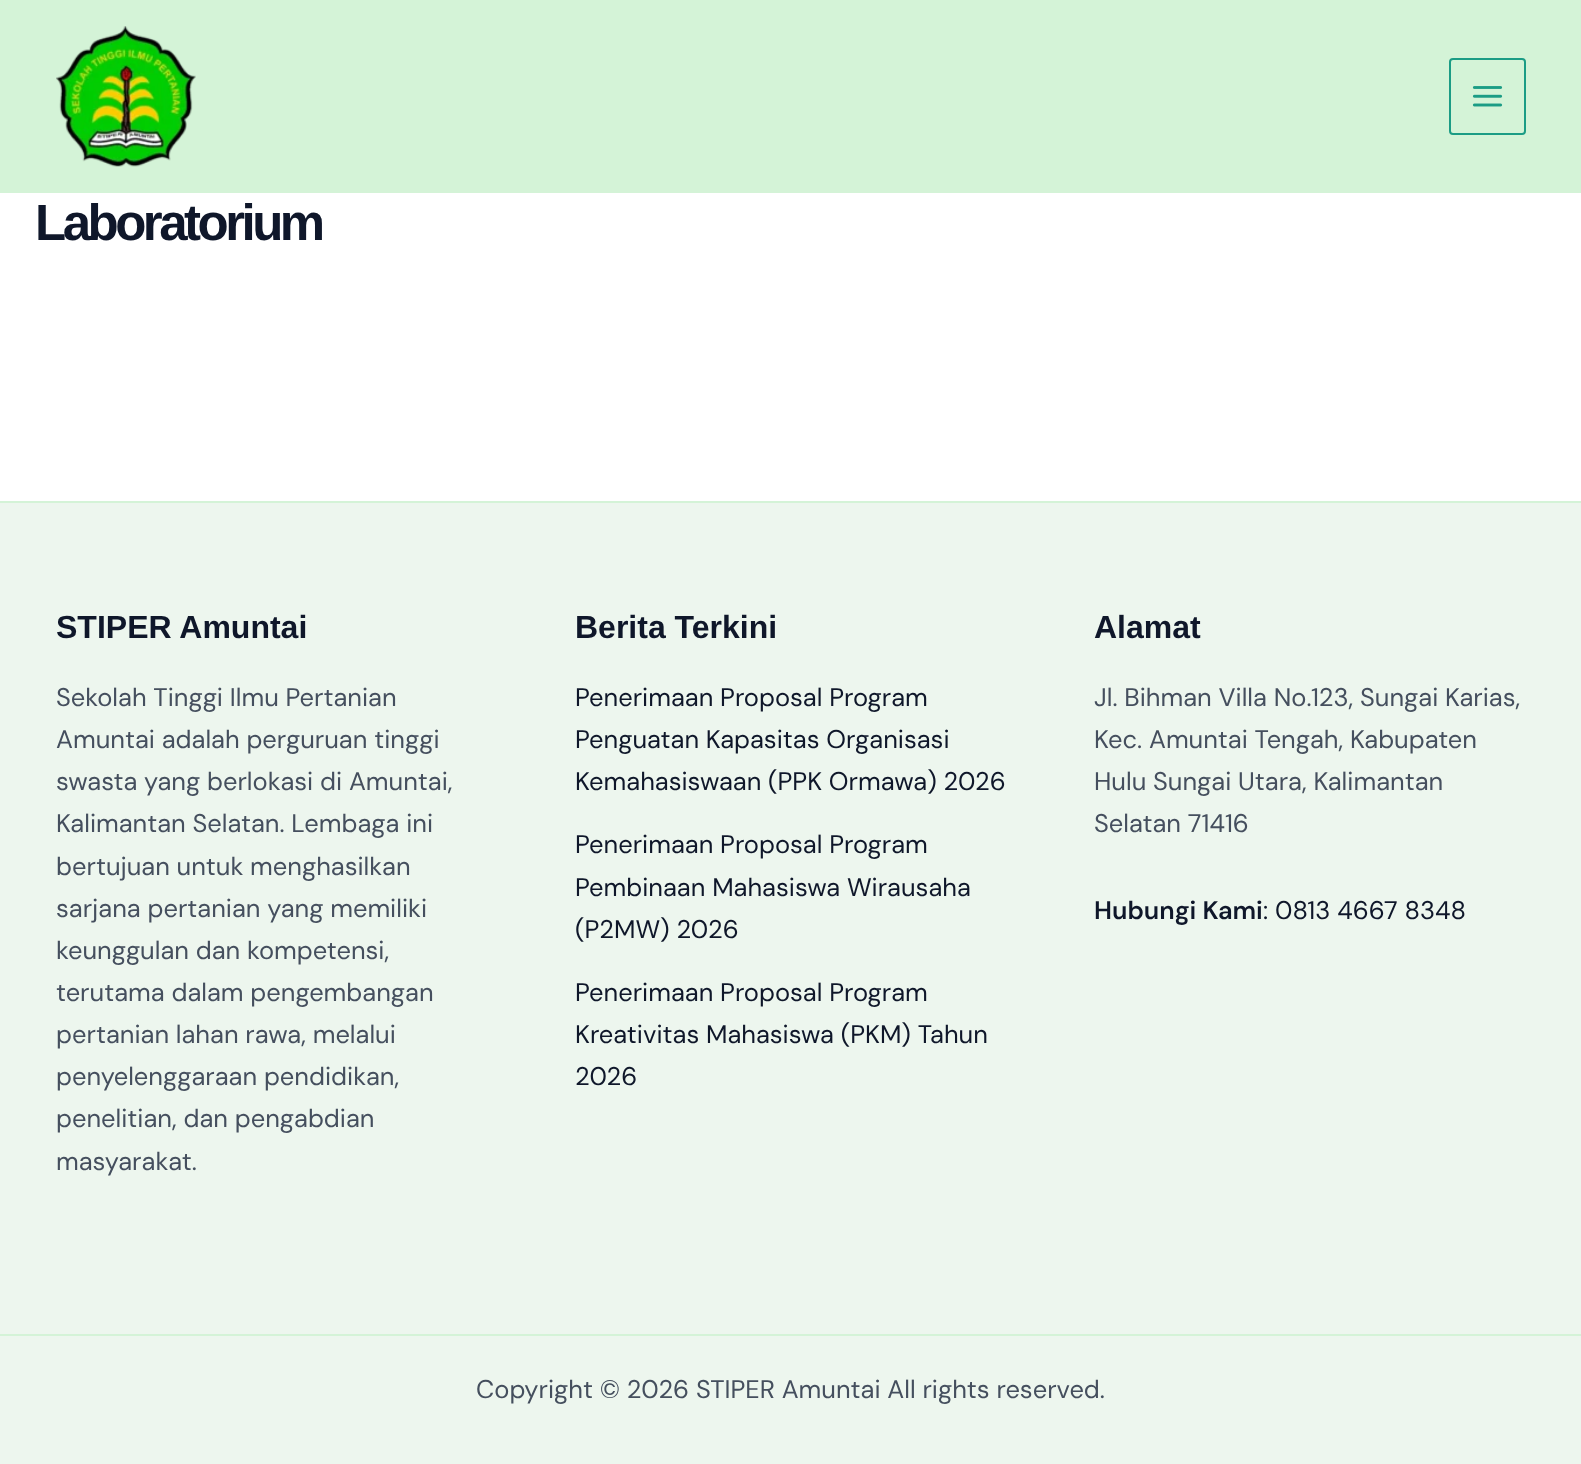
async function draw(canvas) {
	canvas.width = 1581;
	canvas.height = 1464;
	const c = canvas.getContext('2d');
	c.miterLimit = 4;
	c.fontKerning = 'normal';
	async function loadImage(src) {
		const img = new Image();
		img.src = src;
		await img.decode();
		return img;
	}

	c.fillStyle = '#fff';
	c.fillRect(0, 0, 1581, 1464);
	c.fillStyle = '#d4f3d7';
	c.fillRect(0, 0, 1581, 193);
	c.drawImage(await loadImage('img1.png'), 56, 26, 140, 141);
	c.beginPath();
	c.roundRect(1450, 59, 75, 75, 3);
	c.strokeStyle = '#1b9c85';
	c.lineWidth = 2;
	c.stroke();
	c.drawImage(await loadImage('img2.png'), 1472, 86, 31, 21);
	c.letterSpacing = '-3.5px';
	c.font = 'bold 51px Liberation Sans';
	c.fillStyle = '#0f172a';
	c.fillText('Laboratorium', 35, 240);
	c.fillStyle = '#edf6ee';
	c.fillRect(0, 503, 1581, 831);
	c.fillStyle = '#d4f3d7';
	c.fillRect(0, 501, 1581, 2);
	c.letterSpacing = '0px';
	c.font = 'bold 32px Liberation Sans';
	c.fillStyle = '#0f172a';
	c.fillText('STIPER Amuntai', 56, 638);
	c.font = '25.5px DM Sans';
	c.fillStyle = '#454f5e';
	for (const [text, x, y] of [
		['Sekolah Tinggi Ilmu Pertanian', 56, 706],
		['Amuntai adalah perguruan tinggi', 56, 748],
		['swasta yang berlokasi di Amuntai,', 56, 790],
		['Kalimantan Selatan. Lembaga ini', 56, 832],
		['bertujuan untuk menghasilkan', 56, 875],
		['sarjana pertanian yang memiliki', 56, 917],
		['keunggulan dan kompetensi,', 56, 959],
		['terutama dalam pengembangan', 56, 1001],
		['pertanian lahan rawa, melalui', 56, 1043],
		['penyelenggaraan pendidikan,', 56, 1085],
		['penelitian, dan pengabdian', 56, 1127],
		['masyarakat.', 56, 1170],
	]) {
		c.fillText(text, x, y);
	}
	c.font = 'bold 32px Liberation Sans';
	c.fillStyle = '#0f172a';
	c.fillText('Berita Terkini', 575, 638);
	c.font = '25.5px DM Sans';
	for (const [text, x, y] of [
		['Penerimaan Proposal Program', 575, 706],
		['Penguatan Kapasitas Organisasi', 575, 748],
		['Kemahasiswaan (PPK Ormawa) 2026', 575, 790],
		['Penerimaan Proposal Program', 575, 853],
		['Pembinaan Mahasiswa Wirausaha', 575, 896],
		['(P2MW) 2026', 575, 938],
		['Penerimaan Proposal Program', 575, 1001],
		['Kreativitas Mahasiswa (PKM) Tahun', 575, 1043],
		['2026', 575, 1085],
	]) {
		c.fillText(text, x, y);
	}
	c.font = 'bold 32px Liberation Sans';
	c.fillText('Alamat', 1094, 638);
	c.font = '25.5px DM Sans';
	c.fillStyle = '#454f5e';
	for (const [text, x, y] of [
		['Jl. Bihman Villa No.123, Sungai Karias,', 1094, 706],
		['Kec. Amuntai Tengah, Kabupaten', 1094, 748],
		['Hulu Sungai Utara, Kalimantan', 1094, 790],
		['Selatan 71416', 1094, 832],
	]) {
		c.fillText(text, x, y);
	}
	c.font = '600 25.5px DM Sans';
	c.fillStyle = '#0f172a';
	c.fillText('Hubungi Kami', 1094, 919);
	c.font = '25.5px DM Sans';
	c.fillText(': 0813 4667 8348', 1263, 919);
	c.fillStyle = '#edf6ee';
	c.fillRect(0, 1336, 1581, 128);
	c.fillStyle = '#d4f3d7';
	c.fillRect(0, 1334, 1581, 2);
	c.fillStyle = '#454f5e';
	c.fillText('Copyright © 2026 STIPER Amuntai All rights reserved.', 476, 1398);
}

draw(document.querySelector('canvas'));
